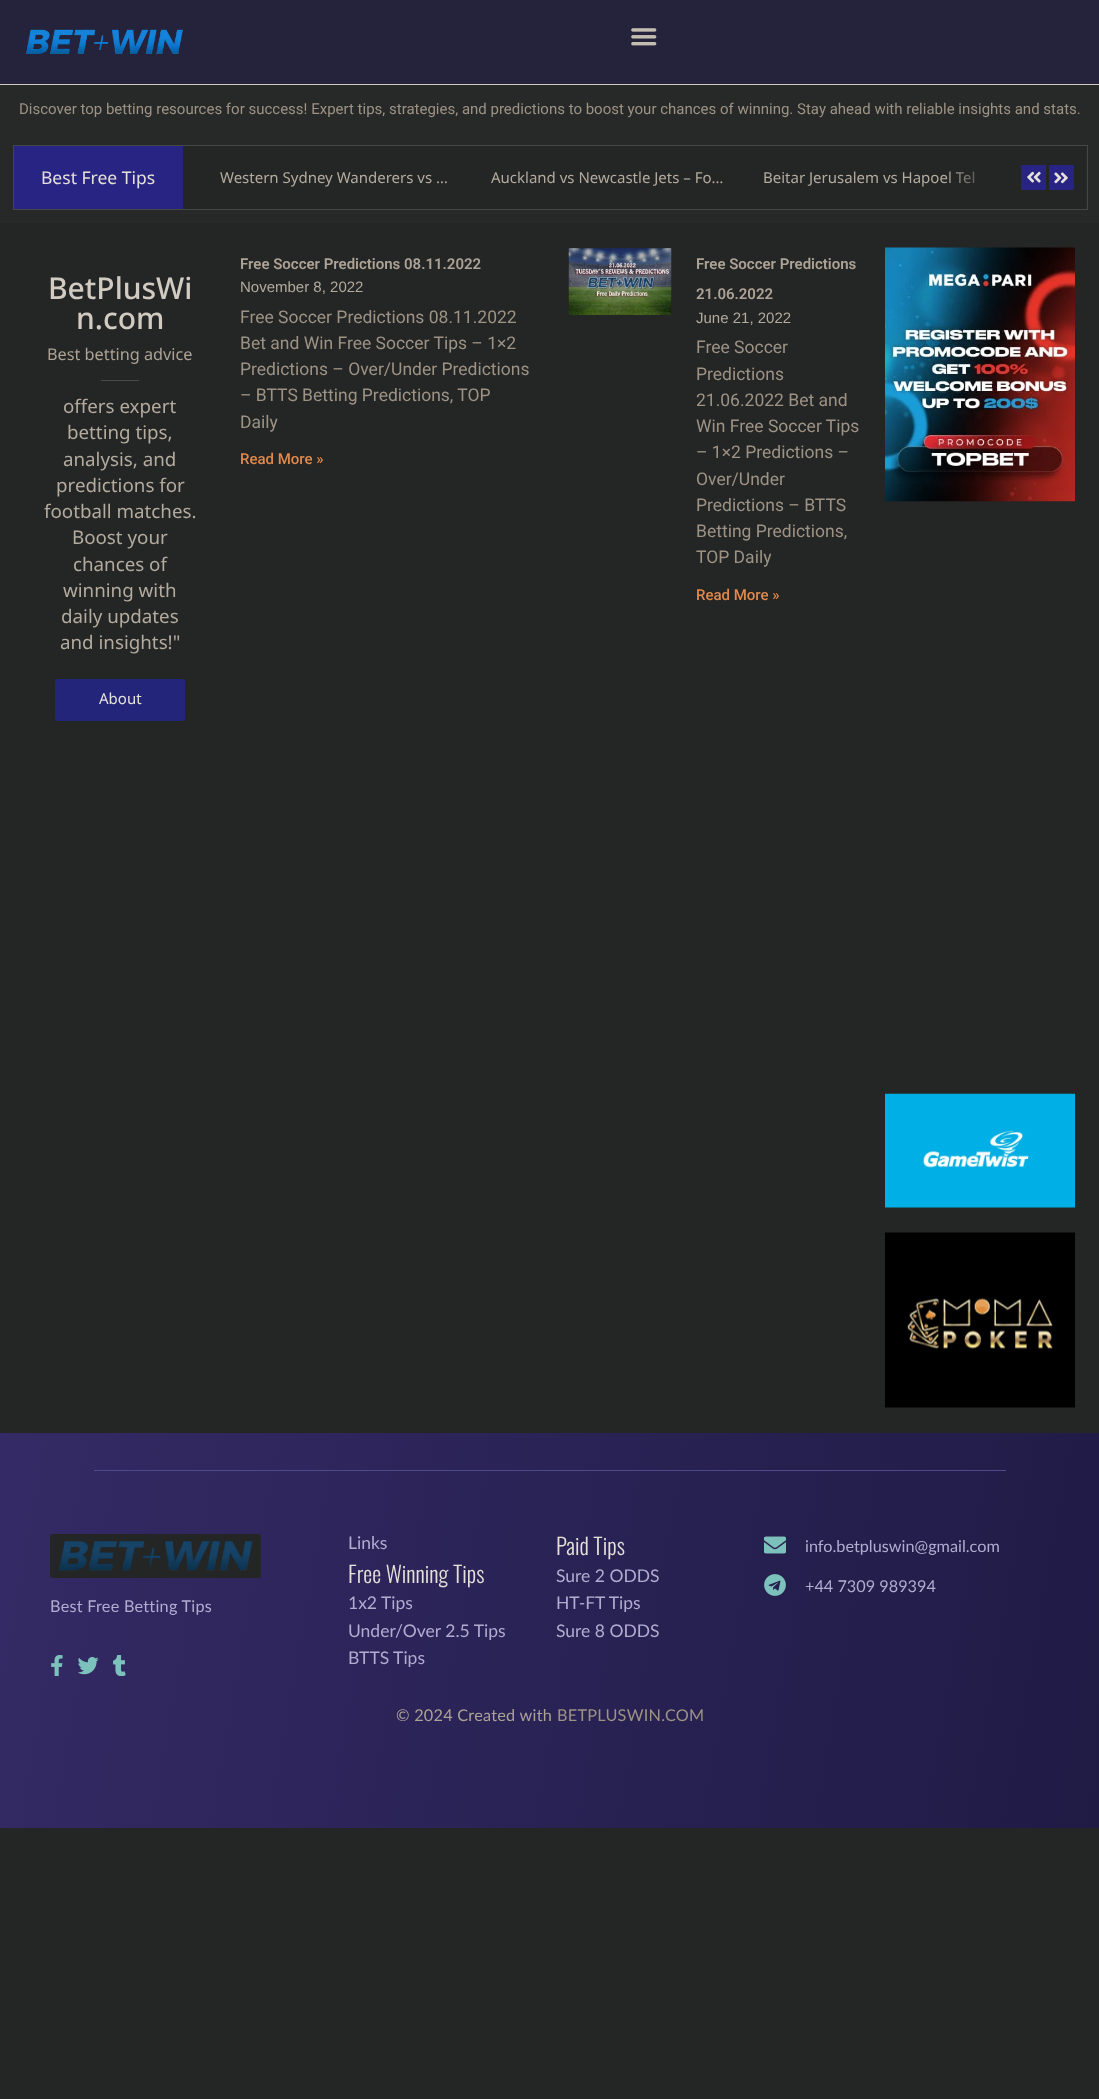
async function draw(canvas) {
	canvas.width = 1099;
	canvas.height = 2099;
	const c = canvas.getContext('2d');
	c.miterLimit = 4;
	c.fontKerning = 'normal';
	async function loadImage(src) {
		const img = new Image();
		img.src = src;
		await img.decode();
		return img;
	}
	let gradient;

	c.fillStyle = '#242525';
	c.fillRect(0, 0, 1099, 2099);
	for (const [x, y, w, h, color] of [
		[0, 85, 1099, 138, '#272928'],
		[0, 0, 1099, 84, '#25223c'],
		[0, 84, 1099, 1, '#d1cbc1'],
	]) {
		c.fillStyle = color;
		c.fillRect(x, y, w, h);
	}
	c.drawImage(await loadImage('img1.png'), 25, 29, 158, 25);
	c.drawImage(await loadImage('img2.png'), 631, 28, 26, 18);
	c.font = '15px Roboto';
	c.fillStyle = '#9d9385';
	c.fillText('Discover top betting resources for success! Expert tips, strategies, and predictions to boost your chances of winning. Stay ahead with reliable insights and stats.', 19, 114);
	c.strokeStyle = '#444747';
	c.strokeRect(13.5, 145.5, 1074, 64);
	c.fillStyle = '#282483';
	c.fillRect(14, 146, 169, 63);
	c.font = '17.5px Noto Sans';
	c.fillStyle = '#e5e0d8';
	c.fillText('Best Free Tips', 41, 184);
	c.fillStyle = '#242525';
	c.fillRect(183, 146, 903, 63);
	c.font = '15px Noto Sans';
	c.fillStyle = '#b3ab9e';
	for (const [text, x, y] of [
		['Western Sydney Wanderers vs …', 220, 183],
		['Auckland vs Newcastle Jets – Fo…', 491, 183],
		['Beitar Jerusalem vs Hapoel Tel', 763, 183],
	]) {
		c.fillText(text, x, y);
	}
	gradient = c.createLinearGradient(946, 178, 996, 178);
	gradient.addColorStop(0, '#24252500');
	gradient.addColorStop(1, '#242525');
	c.fillStyle = gradient;
	c.fillRect(949, 171, 25, 13);
	c.fillStyle = '#282483';
	c.beginPath();
	c.roundRect(1021, 165, 25, 25, 1);
	c.fill();
	c.drawImage(await loadImage('img3.png'), 1027, 171, 14, 12);
	c.beginPath();
	c.moveTo(1072.5, 190);
	c.lineTo(1050, 190);
	c.bezierCurveTo(1049.5, 190, 1049, 189.5, 1049, 189);
	c.lineTo(1049, 166);
	c.bezierCurveTo(1049, 165.5, 1049.5, 165, 1050, 165);
	c.lineTo(1072.5, 165);
	c.bezierCurveTo(1073, 165, 1074, 165.5, 1074, 166);
	c.lineTo(1074, 189);
	c.bezierCurveTo(1074, 189.5, 1073, 190, 1072.5, 190);
	c.closePath();
	c.fill();
	c.drawImage(await loadImage('img4.png'), 1054, 172, 14, 12);
	c.font = '500 30px Noto Sans';
	c.fillStyle = '#d1cbc1';
	c.fillText('BetPlusWi', 48, 299);
	c.fillText('n.com', 76, 329);
	c.font = '16.25px Noto Sans';
	c.fillStyle = '#aca396';
	c.fillText('Best betting advice', 47, 360);
	c.fillStyle = '#474a4a';
	c.fillRect(101, 380, 38, 1);
	c.font = '18.75px Noto Sans';
	c.fillStyle = '#b3ab9e';
	for (const [text, x, y] of [
		['offers expert', 63, 413],
		['betting tips,', 67, 439],
		['analysis, and', 63, 466],
		['predictions for', 56, 492],
		['football matches.', 44, 518],
		['Boost your', 72, 544],
		['chances of', 73, 571],
		['winning with', 63, 597],
		['daily updates', 61, 623],
		['and insights!"', 60, 649],
	]) {
		c.fillText(text, x, y);
	}
	c.fillStyle = '#23257b';
	c.beginPath();
	c.roundRect(55, 679, 130, 42, 2.5);
	c.fill();
	c.font = '15px Noto Sans';
	c.fillStyle = '#e5e0d8';
	c.fillText('About', 99, 704);
	c.font = '600 15px Roboto';
	c.fillStyle = '#aca396';
	c.fillText('Free Soccer Predictions 08.11.2022', 240, 269);
	c.font = '15px Liberation Sans';
	c.fillStyle = '#b3ab9e';
	c.fillText('November 8, 2022', 240, 292);
	c.font = '17.5px Roboto';
	c.fillStyle = '#9d9385';
	for (const [text, x, y] of [
		['Free Soccer Predictions 08.11.2022', 240, 323],
		['Bet and Win Free Soccer Tips – 1×2', 240, 349],
		['Predictions – Over/Under Predictions', 240, 375],
		['– BTTS Betting Predictions, TOP', 240, 401],
		['Daily', 240, 428],
	]) {
		c.fillText(text, x, y);
	}
	c.font = '500 15px Roboto';
	c.fillStyle = '#e0894c';
	c.fillText('Read More »', 240, 464);
	c.drawImage(await loadImage('img5.png'), 568, 248, 104, 67);
	c.font = '600 15px Roboto';
	c.fillStyle = '#aca396';
	c.fillText('Free Soccer Predictions', 696, 269);
	c.fillText('21.06.2022', 696, 299);
	c.font = '15px Liberation Sans';
	c.fillStyle = '#b3ab9e';
	c.fillText('June 21, 2022', 696, 323);
	c.font = '17.5px Roboto';
	c.fillStyle = '#9d9385';
	for (const [text, x, y] of [
		['Free Soccer', 696, 353],
		['Predictions', 696, 380],
		['21.06.2022 Bet and', 696, 406],
		['Win Free Soccer Tips', 696, 432],
		['– 1×2 Predictions –', 696, 458],
		['Over/Under', 696, 485],
		['Predictions – BTTS', 696, 511],
		['Betting Predictions,', 696, 537],
		['TOP Daily', 696, 563],
	]) {
		c.fillText(text, x, y);
	}
	c.font = '500 15px Roboto';
	c.fillStyle = '#e0894c';
	c.fillText('Read More »', 696, 600);
	c.drawImage(await loadImage('img6.png'), 885, 247, 190, 255);
	c.drawImage(await loadImage('img7.png'), 885, 1093, 190, 115);
	c.drawImage(await loadImage('img8.png'), 885, 1232, 190, 176);
	gradient = c.createLinearGradient(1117, 1730, -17, 1530);
	gradient.addColorStop(0, '#1f1b45');
	gradient.addColorStop(1, '#342a65');
	c.fillStyle = gradient;
	c.fillRect(0, 1433, 1099, 395);
	c.fillStyle = '#4e4989';
	c.fillRect(94, 1470, 912, 1);
	c.font = '17.5px Lato';
	c.fillStyle = '#b3acd1';
	c.fillText('Links', 348, 1549);
	c.font = '300 22.5px Oswald';
	c.fillStyle = '#e5e0d8';
	c.fillText('Free Winning Tips', 348, 1583);
	c.font = '17.5px Lato';
	c.fillStyle = '#b3acd1';
	for (const [text, x, y] of [
		['1x2 Tips', 348, 1609],
		['Under/Over 2.5 Tips', 348, 1637],
		['BTTS Tips', 348, 1664],
	]) {
		c.fillText(text, x, y);
	}
	c.font = '300 22.5px Oswald';
	c.fillStyle = '#e5e0d8';
	c.fillText('Paid Tips', 556, 1555);
	c.font = '17.5px Lato';
	c.fillStyle = '#b3acd1';
	for (const [text, x, y] of [
		['Sure 2 ODDS', 556, 1582],
		['HT-FT Tips', 556, 1609],
		['Sure 8 ODDS', 556, 1637],
	]) {
		c.fillText(text, x, y);
	}
	c.drawImage(await loadImage('img9.png'), 764, 1536, 22, 18);
	c.font = '16.25px Lato';
	c.fillText('info.betpluswin@gmail.com', 805, 1552);
	c.drawImage(await loadImage('img10.png'), 764, 1574, 22, 22);
	c.fillText('+44 7309 989394', 805, 1592);
	c.fillStyle = '#242525';
	c.beginPath();
	c.roundRect(50, 1534, 211, 44, 2.5);
	c.fill();
	c.drawImage(await loadImage('img11.png'), 58, 1541, 195, 30);
	c.letterSpacing = '0.25px';
	c.fillStyle = '#b3acd1';
	c.fillText('Best Free Betting Tips', 50, 1612);
	c.drawImage(await loadImage('img12.png'), 51, 1655, 12, 21);
	c.drawImage(await loadImage('img13.png'), 78, 1657, 21, 18);
	c.drawImage(await loadImage('img14.png'), 113, 1655, 13, 21);
	c.fillStyle = '#aca396';
	c.fillText('© 2024 Created with', 396, 1721);
	c.fillStyle = '#9d9385';
	c.fillText('BETPLUSWIN.COM', 557, 1721);
}

draw(document.querySelector('canvas'));
